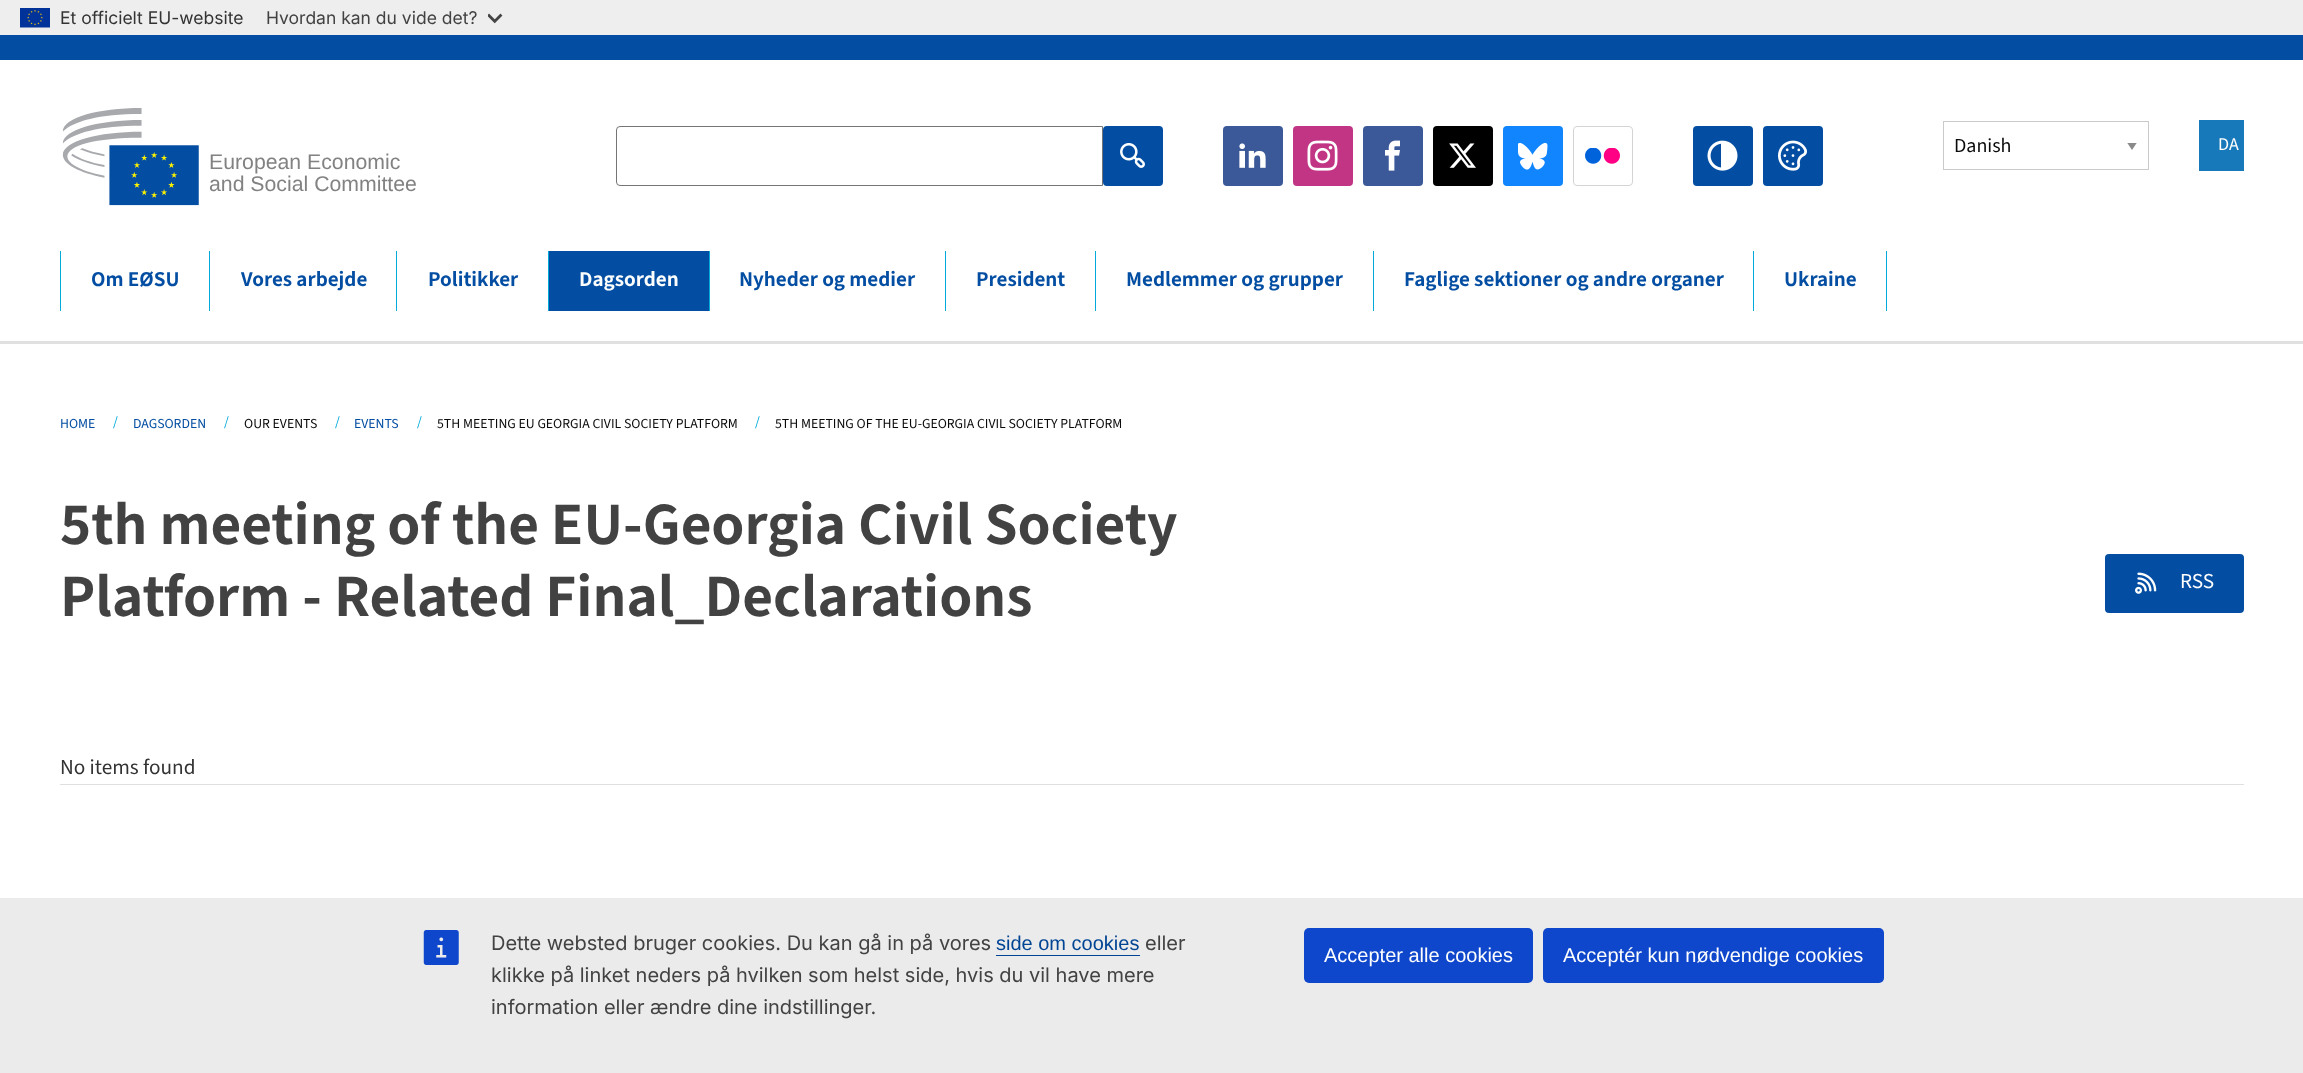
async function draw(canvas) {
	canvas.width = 2303;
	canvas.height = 1073;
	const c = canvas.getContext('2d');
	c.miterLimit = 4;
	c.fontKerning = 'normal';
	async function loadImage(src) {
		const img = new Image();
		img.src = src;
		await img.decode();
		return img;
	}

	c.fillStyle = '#fff';
	c.fillRect(0, 0, 2303, 1073);
	c.fillStyle = '#eee';
	c.fillRect(0, 0, 2303, 35);
	c.drawImage(await loadImage('img1.png'), 20, 8, 30, 20);
	c.font = '17.5px Inter';
	c.fillStyle = '#333';
	c.fillText('Et officielt EU-website', 60, 24);
	c.fillStyle = '#424242';
	c.fillText('Hvordan kan du vide det?', 266, 24);
	c.drawImage(await loadImage('img2.png'), 488, 13, 15, 11);
	c.fillStyle = '#034ea2';
	c.fillRect(0, 35, 2303, 25);
	c.fillStyle = '#e0e0e0';
	c.fillRect(0, 341, 2303, 3);
	c.drawImage(await loadImage('img3.png'), 62, 108, 137, 98);
	c.beginPath();
	c.roundRect(616.5, 126.5, 486, 59, [3.5, 0, 0, 3.5]);
	c.strokeStyle = '#757575';
	c.stroke();
	c.fillStyle = '#034ea2';
	c.beginPath();
	c.roundRect(1103, 126, 60, 60, 4);
	c.fill();
	c.drawImage(await loadImage('img4.png'), 1120, 143, 25, 25);
	c.fillStyle = '#3b5998';
	c.beginPath();
	c.roundRect(1223, 126, 60, 60, 4);
	c.fill();
	c.drawImage(await loadImage('img5.png'), 1239, 143, 27, 25);
	c.fillStyle = '#c13584';
	c.beginPath();
	c.roundRect(1293, 126, 60, 60, 4);
	c.fill();
	c.drawImage(await loadImage('img6.png'), 1307, 140, 31, 31);
	c.fillStyle = '#3b5998';
	c.beginPath();
	c.roundRect(1363, 126, 60, 60, 4);
	c.fill();
	c.drawImage(await loadImage('img7.png'), 1385, 140, 15, 31);
	c.fillStyle = '#000';
	c.beginPath();
	c.roundRect(1433, 126, 60, 60, 4);
	c.fill();
	c.drawImage(await loadImage('img8.png'), 1449, 143, 27, 25);
	c.fillStyle = '#1185fe';
	c.beginPath();
	c.roundRect(1503, 126, 60, 60, 4);
	c.fill();
	c.drawImage(await loadImage('img9.png'), 1518, 142, 30, 28);
	c.beginPath();
	c.roundRect(1573.5, 126.5, 59, 59, 3.5);
	c.strokeStyle = '#d4d4d4';
	c.stroke();
	c.drawImage(await loadImage('img10.png'), 1585, 148, 35, 16);
	c.fillStyle = '#034ea2';
	c.beginPath();
	c.roundRect(1693, 126, 60, 60, 4);
	c.fill();
	c.drawImage(await loadImage('img11.png'), 1707, 140, 31, 31);
	c.beginPath();
	c.roundRect(1763, 126, 60, 60, 4);
	c.fill();
	c.drawImage(await loadImage('img12.png'), 1778, 140, 29, 31);
	c.save();
	c.beginPath();
	c.rect(2126, 143, 12, 7);
	c.clip();
	c.fillStyle = '#8a8a8a';
	c.beginPath();
	c.moveTo(2127, 142.5);
	c.lineTo(2137, 142.5);
	c.lineTo(2132, 150);
	c.closePath();
	c.fill();
	c.restore();
	c.strokeStyle = '#cacaca';
	c.strokeRect(1943.5, 121.5, 205, 48);
	c.font = '20px "Source Sans 3"';
	c.fillStyle = '#0a0a0a';
	c.fillText('Danish', 1954, 152);
	c.fillStyle = '#1779ba';
	c.fillRect(2199, 120, 45, 51);
	c.font = '18px "Source Sans 3"';
	c.fillStyle = '#fefefe';
	c.fillText('DA', 2218, 150);
	c.font = '21.25px Liberation Sans';
	c.fillStyle = '#828282';
	c.fillText('European Economic', 209, 169);
	c.fillText('and Social Committee', 209, 191);
	c.fillStyle = '#00aadb';
	c.fillRect(60, 251, 1, 60);
	c.font = '600 21.25px "Source Sans 3"';
	c.fillStyle = '#034ea2';
	c.fillText('Om EØSU', 91, 286);
	c.fillStyle = '#00aadb';
	c.fillRect(209, 251, 1, 60);
	c.fillStyle = '#034ea2';
	c.fillText('Vores arbejde', 241, 286);
	c.fillStyle = '#00aadb';
	c.fillRect(396, 251, 1, 60);
	c.fillStyle = '#034ea2';
	c.fillText('Politikker', 428, 286);
	c.fillRect(549, 251, 160, 60);
	c.fillStyle = '#00aadb';
	c.fillRect(548, 251, 1, 60);
	c.fillStyle = '#fefefe';
	c.fillText('Dagsorden', 579, 286);
	c.fillStyle = '#00aadb';
	c.fillRect(709, 251, 1, 60);
	c.fillStyle = '#034ea2';
	c.fillText('Nyheder og medier', 739, 286);
	c.fillStyle = '#00aadb';
	c.fillRect(945, 251, 1, 60);
	c.fillStyle = '#034ea2';
	c.fillText('President', 976, 286);
	c.fillStyle = '#00aadb';
	c.fillRect(1095, 251, 1, 60);
	c.fillStyle = '#034ea2';
	c.fillText('Medlemmer og grupper', 1126, 286);
	c.fillStyle = '#00aadb';
	c.fillRect(1373, 251, 1, 60);
	c.fillStyle = '#034ea2';
	c.fillText('Faglige sektioner og andre organer', 1404, 286);
	c.fillStyle = '#00aadb';
	c.fillRect(1886, 251, 1, 60);
	c.fillRect(1753, 251, 1, 60);
	c.fillStyle = '#034ea2';
	c.fillText('Ukraine', 1784, 286);
	c.font = '13.75px "Source Sans 3"';
	c.fillText('HOME', 60, 428);
	c.fillStyle = '#00aadb';
	c.fillText('/', 113, 426);
	c.fillStyle = '#034ea2';
	c.fillText('DAGSORDEN', 133, 428);
	c.fillStyle = '#00aadb';
	c.fillText('/', 224, 426);
	c.fillStyle = '#0a0a0a';
	c.fillText('OUR EVENTS', 244, 428);
	c.fillStyle = '#00aadb';
	c.fillText('/', 335, 426);
	c.fillStyle = '#034ea2';
	c.fillText('EVENTS', 354, 428);
	c.fillStyle = '#00aadb';
	c.fillText('/', 417, 426);
	c.fillStyle = '#0a0a0a';
	c.fillText('5TH MEETING EU GEORGIA CIVIL SOCIETY PLATFORM', 437, 428);
	c.fillStyle = '#00aadb';
	c.fillText('/', 755, 426);
	c.fillStyle = '#0a0a0a';
	c.fillText('5TH MEETING OF THE EU-GEORGIA CIVIL SOCIETY PLATFORM', 775, 428);
	c.font = '600 60px "Source Sans 3"';
	c.fillStyle = '#424242';
	c.fillText('5th meeting of the EU-Georgia Civil Society', 60, 544);
	c.fillText('Platform - Related Final_Declarations', 60, 616);
	c.fillStyle = '#034ea2';
	c.beginPath();
	c.roundRect(2105, 554, 139, 59, 4);
	c.fill();
	c.drawImage(await loadImage('img13.png'), 2135, 572, 22, 22);
	c.font = '21.25px "Source Sans 3"';
	c.fillStyle = '#fefefe';
	c.fillText('RSS', 2180, 588);
	c.fillStyle = '#333';
	c.fillText('No items found', 60, 774);
	c.fillStyle = '#e0e0e0';
	c.fillRect(60, 784, 2184, 1);
	c.fillStyle = '#ebebeb';
	c.fillRect(0, 898, 2303, 175);
	c.drawImage(await loadImage('img14.png'), 423, 930, 36, 35);
	c.font = '20px Inter';
	c.fillStyle = '#424242';
	c.fillText('Dette websted bruger cookies. Du kan gå in på vores', 491, 950);
	c.font = '20px Liberation Sans';
	c.fillStyle = '#004494';
	c.fillText('side om cookies', 996, 950);
	c.fillRect(996, 955, 144, 1);
	c.font = '20px Inter';
	c.fillStyle = '#424242';
	for (const [text, x, y] of [
		['eller', 1145, 950],
		['klikke på linket neders på hvilken som helst side, hvis du vil have mere', 491, 982],
		['information eller ændre dine indstillinger.', 491, 1014],
	]) {
		c.fillText(text, x, y);
	}
	c.fillStyle = '#0e47cb';
	c.beginPath();
	c.roundRect(1304, 928, 229, 55, 5);
	c.fill();
	c.font = '20px Liberation Sans';
	c.fillStyle = '#fefefe';
	c.fillText('Accepter alle cookies', 1324, 962);
	c.fillStyle = '#0e47cb';
	c.beginPath();
	c.roundRect(1543, 928, 341, 55, 5);
	c.fill();
	c.fillStyle = '#fefefe';
	c.fillText('Acceptér kun nødvendige cookies', 1563, 962);
}

draw(document.querySelector('canvas'));
